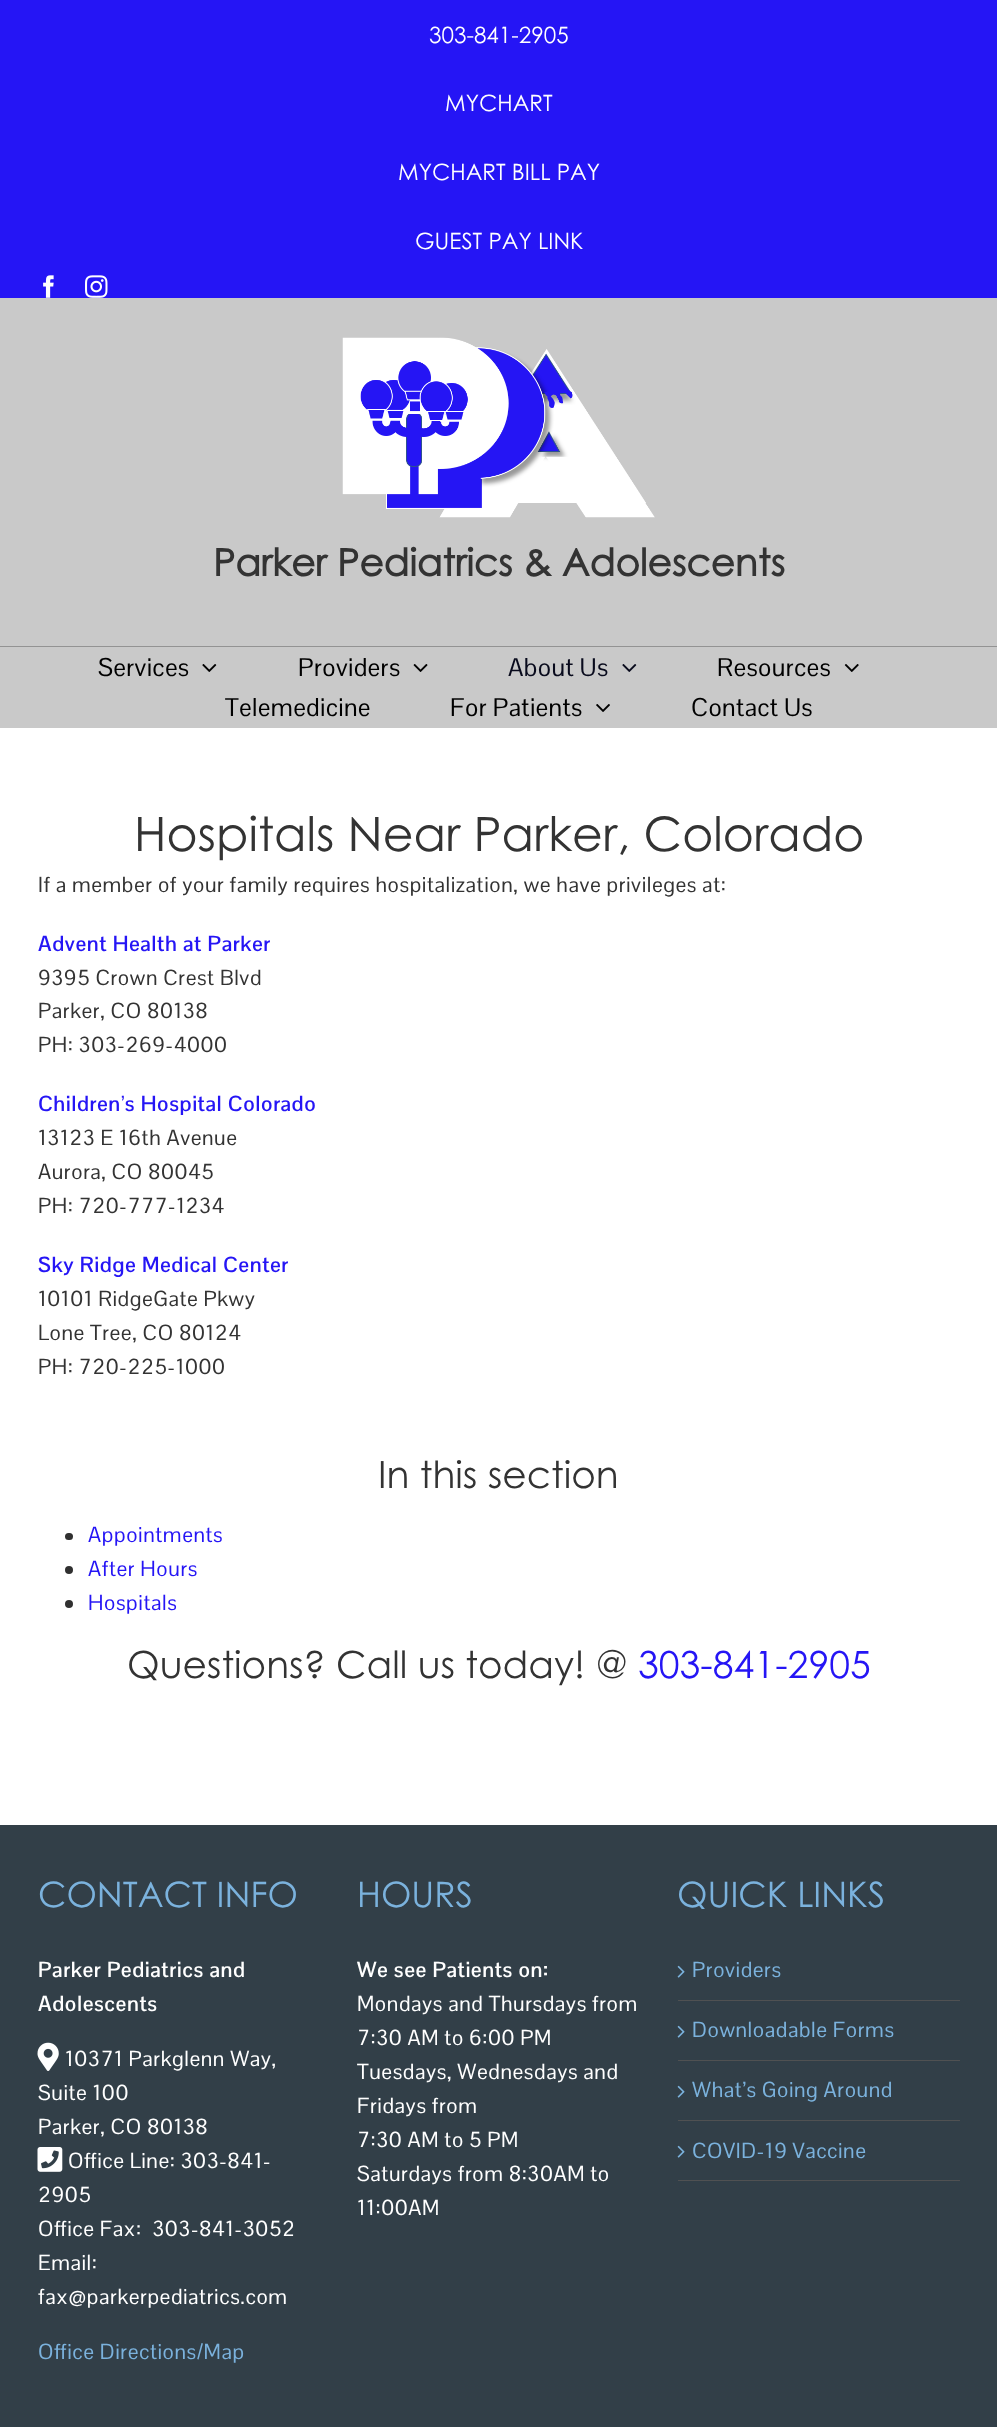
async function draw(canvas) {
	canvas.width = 997;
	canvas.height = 2427;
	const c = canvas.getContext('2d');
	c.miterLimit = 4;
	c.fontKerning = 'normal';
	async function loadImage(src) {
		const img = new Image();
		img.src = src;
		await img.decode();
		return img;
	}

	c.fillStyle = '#fff';
	c.fillRect(0, 0, 997, 2427);
	c.fillStyle = '#2515f5';
	c.fillRect(0, 0, 997, 298);
	c.font = '22.5px Century Gothic';
	c.fillStyle = '#fff';
	for (const [text, x, y] of [
		['303-841-2905', 429, 43],
		['MYCHART', 445, 111],
		['MYCHART BILL PAY', 398, 180],
		['GUEST PAY LINK', 415, 249],
	]) {
		c.fillText(text, x, y);
	}
	c.drawImage(await loadImage('img1.png'), 43, 275, 11, 23);
	c.drawImage(await loadImage('img2.png'), 85, 275, 23, 23);
	c.fillStyle = '#c9c9c9';
	c.fillRect(0, 298, 997, 348);
	c.drawImage(await loadImage('img3.png'), 342, 337, 313, 181);
	c.font = 'bold 37.5px Century Gothic';
	c.fillStyle = '#333';
	c.fillText('Parker Pediatrics & Adolescents', 213, 576);
	c.fillStyle = '#c9c9c9';
	c.fillRect(0, 647, 997, 81);
	c.fillStyle = '#939393';
	c.fillRect(0, 646, 997, 1);
	c.letterSpacing = '0.4px';
	c.font = '25px Pontano Sans';
	c.fillStyle = '#000';
	c.fillText('Services', 98, 676);
	c.drawImage(await loadImage('img4.png'), 202, 664, 15, 8);
	c.fillText('Providers', 298, 676);
	c.drawImage(await loadImage('img5.png'), 413, 664, 15, 8);
	c.fillStyle = '#080a1c';
	c.fillText('About Us', 508, 676);
	c.drawImage(await loadImage('img6.png'), 622, 664, 15, 8);
	c.fillStyle = '#000';
	c.fillText('Resources', 717, 676);
	c.drawImage(await loadImage('img7.png'), 844, 664, 15, 8);
	c.fillText('Telemedicine', 225, 716);
	c.fillText('For Patients', 450, 716);
	c.drawImage(await loadImage('img8.png'), 596, 704, 14, 8);
	c.fillText('Contact Us', 691, 716);
	c.letterSpacing = '0px';
	c.font = '47.5px Century Gothic';
	c.fillStyle = '#333';
	c.fillText('Hospitals Near Parker, Colorado', 134, 851);
	c.letterSpacing = '0.62px';
	c.font = '21.25px Pontano Sans';
	c.fillText('If a member of your family requires hospitalization, we have privileges at:', 38, 892);
	c.font = 'bold 21.25px Pontano Sans';
	c.fillStyle = '#2515f5';
	c.fillText('Advent Health at Parker', 38, 951);
	c.font = '21.25px Pontano Sans';
	c.fillStyle = '#333';
	for (const [text, x, y] of [
		['9395 Crown Crest Blvd', 38, 985],
		['Parker, CO 80138', 38, 1018],
		['PH: 303-269-4000', 38, 1052],
	]) {
		c.fillText(text, x, y);
	}
	c.font = 'bold 21.25px Pontano Sans';
	c.fillStyle = '#2515f5';
	c.fillText('Children’s Hospital Colorado', 38, 1111);
	c.font = '21.25px Pontano Sans';
	c.fillStyle = '#333';
	for (const [text, x, y] of [
		['13123 E 16th Avenue', 38, 1145],
		['Aurora, CO 80045', 38, 1179],
		['PH: 720-777-1234', 38, 1213],
	]) {
		c.fillText(text, x, y);
	}
	c.font = 'bold 21.25px Pontano Sans';
	c.fillStyle = '#2515f5';
	c.fillText('Sky Ridge Medical Center', 38, 1272);
	c.font = '21.25px Pontano Sans';
	c.fillStyle = '#333';
	for (const [text, x, y] of [
		['10101 RidgeGate Pkwy', 38, 1306],
		['Lone Tree, CO 80124', 38, 1340],
		['PH: 720-225-1000', 38, 1374],
	]) {
		c.fillText(text, x, y);
	}
	c.letterSpacing = '0px';
	c.font = '37.5px Century Gothic';
	c.fillText('In this section', 378, 1488);
	c.fillStyle = '#303030';
	c.beginPath();
	c.roundRect(65, 1533, 8, 7, 3.5);
	c.fill();
	c.letterSpacing = '0.62px';
	c.font = '21.25px Pontano Sans';
	c.fillStyle = '#2515f5';
	c.fillText('Appointments', 88, 1542);
	c.fillStyle = '#303030';
	c.beginPath();
	c.arc(69, 1570, 4, 0, 2 * Math.PI);
	c.fill();
	c.fillStyle = '#2515f5';
	c.fillText('After Hours', 88, 1576);
	c.fillStyle = '#303030';
	c.beginPath();
	c.arc(69, 1604, 4, 0, 2 * Math.PI);
	c.fill();
	c.fillStyle = '#2515f5';
	c.fillText('Hospitals', 88, 1610);
	c.letterSpacing = '0px';
	c.font = '37.5px Century Gothic';
	c.fillStyle = '#333';
	c.fillText('Questions? Call us today! @', 127, 1678);
	c.fillStyle = '#2515f5';
	c.fillText('303-841-2905', 638, 1678);
	c.fillStyle = '#323f48';
	c.fillRect(0, 1825, 997, 602);
	c.font = '35px Century Gothic';
	c.fillStyle = '#7bb2dd';
	c.fillText('CONTACT INFO', 38, 1907);
	c.letterSpacing = '0.62px';
	c.font = 'bold 21.25px Pontano Sans';
	c.fillStyle = '#fff';
	c.fillText('Parker Pediatrics and', 38, 1977);
	c.fillText('Adolescents', 38, 2011);
	c.drawImage(await loadImage('img9.png'), 37, 2042, 22, 29);
	c.font = '21.25px Pontano Sans';
	for (const [text, x, y] of [
		['10371 Parkglenn Way,', 65, 2066],
		['Suite 100', 38, 2100],
		['Parker, CO 80138', 38, 2134],
	]) {
		c.fillText(text, x, y);
	}
	c.drawImage(await loadImage('img10.png'), 37, 2147, 26, 25);
	for (const [text, x, y] of [
		['Office Line: 303-841-', 68, 2168],
		['2905', 38, 2202],
		['Office Fax:  303-841-3052', 38, 2236],
		['Email:', 38, 2270],
		['fax@parkerpediatrics.com', 38, 2304],
	]) {
		c.fillText(text, x, y);
	}
	c.fillStyle = '#7bb2dd';
	c.fillText('Office Directions/Map', 38, 2359);
	c.letterSpacing = '0px';
	c.font = '35px Century Gothic';
	c.fillText('HOURS', 357, 1907);
	c.letterSpacing = '0.62px';
	c.font = 'bold 21.25px Pontano Sans';
	c.fillStyle = '#fff';
	c.fillText('We see Patients on:', 357, 1977);
	c.font = '21.25px Pontano Sans';
	for (const [text, x, y] of [
		['Mondays and Thursdays from', 357, 2011],
		['7:30 AM to 6:00 PM', 357, 2045],
		['Tuesdays, Wednesdays and', 357, 2079],
		['Fridays from', 357, 2113],
		['7:30 AM to 5 PM', 357, 2147],
		['Saturdays from 8:30AM to', 357, 2181],
		['11:00AM', 357, 2215],
	]) {
		c.fillText(text, x, y);
	}
	c.letterSpacing = '0px';
	c.font = '35px Century Gothic';
	c.fillStyle = '#7bb2dd';
	c.fillText('QUICK LINKS', 677, 1907);
	c.fillStyle = '#505152';
	c.fillRect(678, 2000, 282, 1);
	c.drawImage(await loadImage('img11.png'), 677, 1965, 8, 13);
	c.letterSpacing = '0.62px';
	c.font = '21.25px Pontano Sans';
	c.fillStyle = '#7bb2dd';
	c.fillText('Providers', 692, 1977);
	c.fillStyle = '#505152';
	c.fillRect(678, 2060, 282, 1);
	c.drawImage(await loadImage('img11.png'), 677, 2025, 8, 13);
	c.fillStyle = '#7bb2dd';
	c.fillText('Downloadable Forms', 692, 2037);
	c.fillStyle = '#505152';
	c.fillRect(678, 2120, 282, 1);
	c.drawImage(await loadImage('img11.png'), 677, 2085, 8, 13);
	c.fillStyle = '#7bb2dd';
	c.fillText('What’s Going Around', 692, 2097);
	c.fillStyle = '#505152';
	c.fillRect(678, 2180, 282, 1);
	c.drawImage(await loadImage('img11.png'), 677, 2145, 8, 13);
	c.fillStyle = '#7bb2dd';
	c.fillText('COVID-19 Vaccine', 692, 2158);
}

draw(document.querySelector('canvas'));
